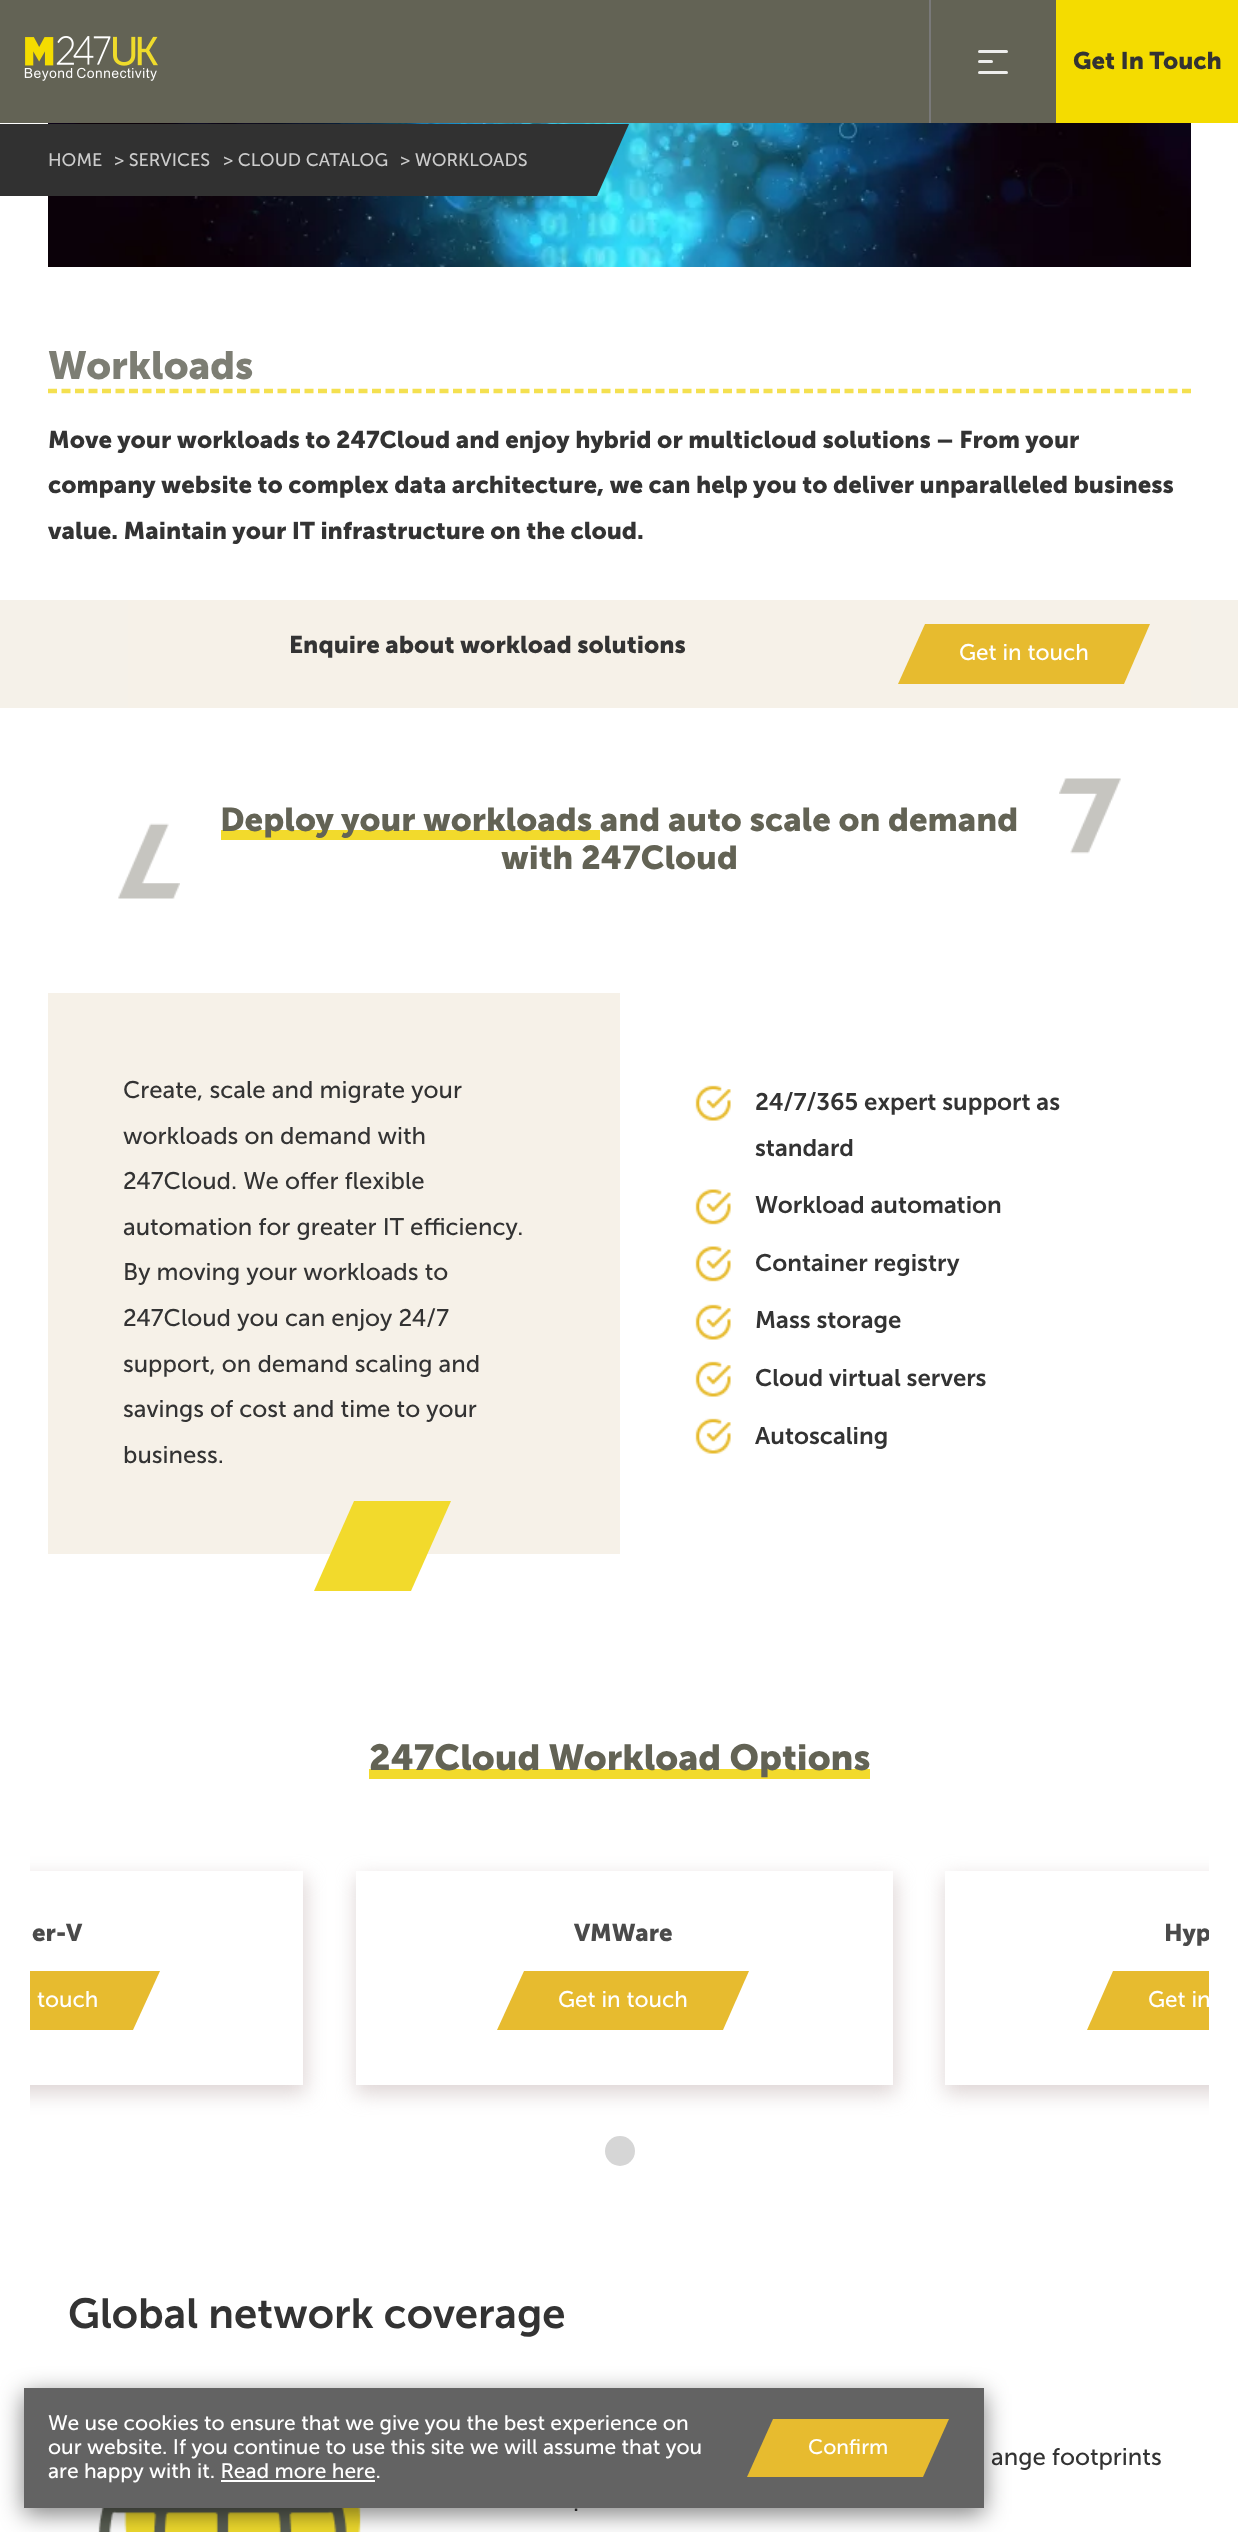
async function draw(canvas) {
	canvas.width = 1238;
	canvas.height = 2532;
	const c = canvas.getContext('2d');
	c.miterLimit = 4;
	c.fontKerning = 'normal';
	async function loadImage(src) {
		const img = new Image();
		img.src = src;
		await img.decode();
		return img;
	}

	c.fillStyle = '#fff';
	c.fillRect(0, 0, 1238, 2532);
	c.fillStyle = '#636355';
	c.fillRect(0, 0, 1056, 123);
	c.drawImage(await loadImage('img1.png'), 24, 36, 134, 45);
	c.fillStyle = '#797979';
	c.fillRect(929, 0, 2, 123);
	c.fillStyle = '#eeeeed';
	c.beginPath();
	c.roundRect(978, 50, 30, 3, 1.5);
	c.fill();
	c.beginPath();
	c.roundRect(978, 60, 15, 3, 1.5);
	c.fill();
	c.beginPath();
	c.roundRect(978, 71, 30, 3, 1.5);
	c.fill();
	c.fillStyle = '#f4dc00';
	c.fillRect(1056, 0, 182, 123);
	c.font = '900 24px Museo Sans';
	c.fillStyle = '#333';
	c.fillText('Get In Touch', 1073, 69);
	c.drawImage(await loadImage('img2.png'), 48, 123, 1143, 144);
	c.fillStyle = '#313131';
	c.beginPath();
	c.moveTo(-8, 124);
	c.lineTo(629, 124);
	c.lineTo(597, 196);
	c.lineTo(-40, 196);
	c.closePath();
	c.fill();
	c.font = '600 18px Museo Sans';
	c.fillStyle = '#ccc';
	for (const [text, x, y] of [
		['HOME', 48, 166],
		['> SERVICES', 114, 166],
		['> CLOUD CATALOG', 223, 166],
		['> WORKLOADS', 400, 166],
	]) {
		c.fillText(text, x, y);
	}
	c.beginPath();
	c.moveTo(48, 391);
	c.lineTo(1191, 391);
	c.strokeStyle = '#f4e050';
	c.lineWidth = 4.5;
	c.setLineDash([9, 4.5]);
	c.stroke();
	c.font = '900 39px Museo Sans';
	c.fillStyle = '#7d7e74';
	c.fillText('Workloads', 48, 379);
	c.font = '900 24px Museo Sans';
	c.fillStyle = '#333';
	for (const [text, x, y] of [
		['Move your workloads to 247Cloud and enjoy hybrid or multicloud solutions – From your', 48, 448],
		['company website to complex data architecture, we can help you to deliver unparalleled business', 48, 493],
		['value. Maintain your IT infrastructure on the cloud.', 48, 539],
	]) {
		c.fillText(text, x, y);
	}
	c.fillStyle = '#f6f1e8';
	c.fillRect(128, 600, 1063, 108);
	c.fillStyle = '#f5f1e9';
	c.fillRect(0, 600, 128, 108);
	c.fillStyle = '#333';
	c.fillText('Enquire about workload solutions', 289, 653);
	c.fillStyle = '#e7bb2f';
	c.beginPath();
	c.moveTo(925, 624);
	c.lineTo(1150, 624);
	c.lineTo(1124, 684);
	c.lineTo(898, 684);
	c.closePath();
	c.fill();
	c.font = '600 22.5px Museo Sans';
	c.fillStyle = '#fff';
	c.fillText('Get in touch', 959, 660);
	c.fillStyle = '#f5f1e9';
	c.fillRect(1191, 600, 47, 108);
	c.drawImage(await loadImage('img3.png'), 118, 823, 62, 76);
	c.fillStyle = '#f2da2c';
	c.fillRect(221, 830, 379, 10);
	c.font = '900 33px Museo Sans';
	c.fillStyle = '#636355';
	c.fillText('Deploy your workloads and auto scale on demand', 220, 831);
	c.fillText('with 247Cloud', 501, 869);
	c.drawImage(await loadImage('img4.png'), 1059, 778, 62, 76);
	c.fillStyle = '#f6f1e8';
	c.fillRect(48, 993, 572, 561);
	c.font = '600 24px Museo Sans';
	c.fillStyle = '#333';
	for (const [text, x, y] of [
		['Create, scale and migrate your', 123, 1098],
		['workloads on demand with', 123, 1144],
		['247Cloud. We offer flexible', 123, 1189],
		['automation for greater IT efficiency.', 123, 1235],
		['By moving your workloads to', 123, 1280],
		['247Cloud you can enjoy 24/7', 123, 1326],
		['support, on demand scaling and', 123, 1372],
		['savings of cost and time to your', 123, 1417],
		['business.', 123, 1463],
	]) {
		c.fillText(text, x, y);
	}
	c.fillStyle = '#f2da2c';
	c.beginPath();
	c.moveTo(354, 1501);
	c.lineTo(451, 1501);
	c.lineTo(411, 1591);
	c.lineTo(314, 1591);
	c.closePath();
	c.fill();
	c.drawImage(await loadImage('img5.png'), 695, 1085, 36, 36);
	c.font = 'bold 24px Museo Sans';
	c.fillStyle = '#333';
	c.fillText('24/7/365 expert support as', 755, 1110);
	c.fillText('standard', 755, 1156);
	c.drawImage(await loadImage('img6.png'), 695, 1189, 36, 36);
	c.fillText('Workload automation', 755, 1213);
	c.drawImage(await loadImage('img6.png'), 695, 1246, 36, 36);
	c.fillText('Container registry', 755, 1271);
	c.drawImage(await loadImage('img5.png'), 695, 1304, 36, 36);
	c.fillText('Mass storage', 755, 1328);
	c.drawImage(await loadImage('img5.png'), 695, 1361, 36, 36);
	c.fillText('Cloud virtual servers', 755, 1386);
	c.drawImage(await loadImage('img7.png'), 695, 1418, 36, 36);
	c.fillText('Autoscaling', 755, 1444);
	c.fillStyle = '#f2da2c';
	c.fillRect(369, 1769, 501, 10);
	c.font = '900 36px Museo Sans';
	c.fillStyle = '#636355';
	c.fillText('247Cloud Workload Options', 369, 1770);
	c.save();
	c.beginPath();
	c.rect(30, 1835, 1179, 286);
	c.clip();
	c.fillStyle = '#c9baba9c';
	c.filter = 'blur(10px)';
	c.beginPath();
	c.rect(-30, 1877, 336, 217);
	c.fill();
	c.filter = 'none';
	c.restore();
	c.fillStyle = '#fff';
	c.fillRect(30, 1871, 273, 214);
	c.font = '900 24px Museo Sans';
	c.fillStyle = '#4a4a4a';
	c.fillText('er-V', 32, 1941);
	c.save();
	c.beginPath();
	c.rect(30, 1835, 1179, 286);
	c.clip();
	c.fillStyle = '#e7bb2f';
	c.beginPath();
	c.moveTo(-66, 1971);
	c.lineTo(160, 1971);
	c.lineTo(133, 2030);
	c.lineTo(-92, 2030);
	c.closePath();
	c.fill();
	c.restore();
	c.font = '600 22.5px Museo Sans';
	c.fillStyle = '#fff';
	c.fillText('touch', 37, 2007);
	c.fillStyle = '#c9baba9c';
	c.filter = 'blur(10px)';
	c.beginPath();
	c.rect(356, 1877, 540, 217);
	c.fill();
	c.filter = 'none';
	c.fillStyle = '#fff';
	c.fillRect(356, 1871, 537, 214);
	c.font = '900 24px Museo Sans';
	c.fillStyle = '#4a4a4a';
	c.fillText('VMWare', 574, 1941);
	c.fillStyle = '#e7bb2f';
	c.beginPath();
	c.moveTo(524, 1971);
	c.lineTo(749, 1971);
	c.lineTo(723, 2030);
	c.lineTo(497, 2030);
	c.closePath();
	c.fill();
	c.font = '600 22.5px Museo Sans';
	c.fillStyle = '#fff';
	c.fillText('Get in touch', 558, 2007);
	c.save();
	c.beginPath();
	c.rect(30, 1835, 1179, 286);
	c.clip();
	c.beginPath();
	c.moveTo(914, 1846);
	c.lineTo(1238, 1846);
	c.lineTo(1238, 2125);
	c.lineTo(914, 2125);
	c.closePath();
	c.moveTo(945, 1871);
	c.lineTo(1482, 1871);
	c.lineTo(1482, 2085);
	c.lineTo(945, 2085);
	c.closePath();
	c.clip('evenodd');
	c.fillStyle = '#c9baba9c';
	c.filter = 'blur(10px)';
	c.beginPath();
	c.rect(945, 1877, 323, 217);
	c.fill();
	c.filter = 'none';
	c.restore();
	c.save();
	c.beginPath();
	c.rect(30, 1835, 1179, 286);
	c.clip();
	c.font = '900 24px Museo Sans';
	c.fillStyle = '#4a4a4a';
	c.fillText('Hyp', 1164, 1941);
	c.fillStyle = '#e7bb2f';
	c.beginPath();
	c.moveTo(1113, 1971);
	c.lineTo(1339, 1971);
	c.lineTo(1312, 2030);
	c.lineTo(1087, 2030);
	c.closePath();
	c.fill();
	c.restore();
	c.fillText('Get in', 1148, 2007);
	c.fillStyle = '#d6d6d6';
	c.beginPath();
	c.arc(620, 2151, 15, 0, 2 * Math.PI);
	c.fill();
	c.font = 'bold 42px Museo Sans';
	c.fillStyle = '#333';
	c.fillText('Global network coverage', 68, 2328);
	c.font = '600 24px Museo Sans';
	c.fillText('ange footprints', 991, 2465);
	c.fillText('.', 573, 2511);
	c.drawImage(await loadImage('img8.png'), 98, 2508, 263, 24);
	c.fillStyle = '#00000080';
	c.filter = 'blur(12px)';
	c.beginPath();
	c.rect(24, 2394, 960, 120);
	c.fill();
	c.filter = 'none';
	c.fillStyle = '#636363';
	c.fillRect(24, 2388, 960, 120);
	c.font = '600 21px Museo Sans';
	c.fillStyle = '#fff';
	for (const [text, x, y] of [
		['We use cookies to ensure that we give you the best experience on', 48, 2430],
		['our website. If you continue to use this site we will assume that you', 48, 2454],
		['are happy with it. Read more here.', 48, 2478],
	]) {
		c.fillText(text, x, y);
	}
	c.fillRect(221, 2480, 154, 2);
	c.fillStyle = '#e7bb2f';
	c.beginPath();
	c.moveTo(773, 2419);
	c.lineTo(949, 2419);
	c.lineTo(923, 2477);
	c.lineTo(747, 2477);
	c.closePath();
	c.fill();
	c.fillStyle = '#fff';
	c.fillText('Confirm', 808, 2454);
}

draw(document.querySelector('canvas'));
